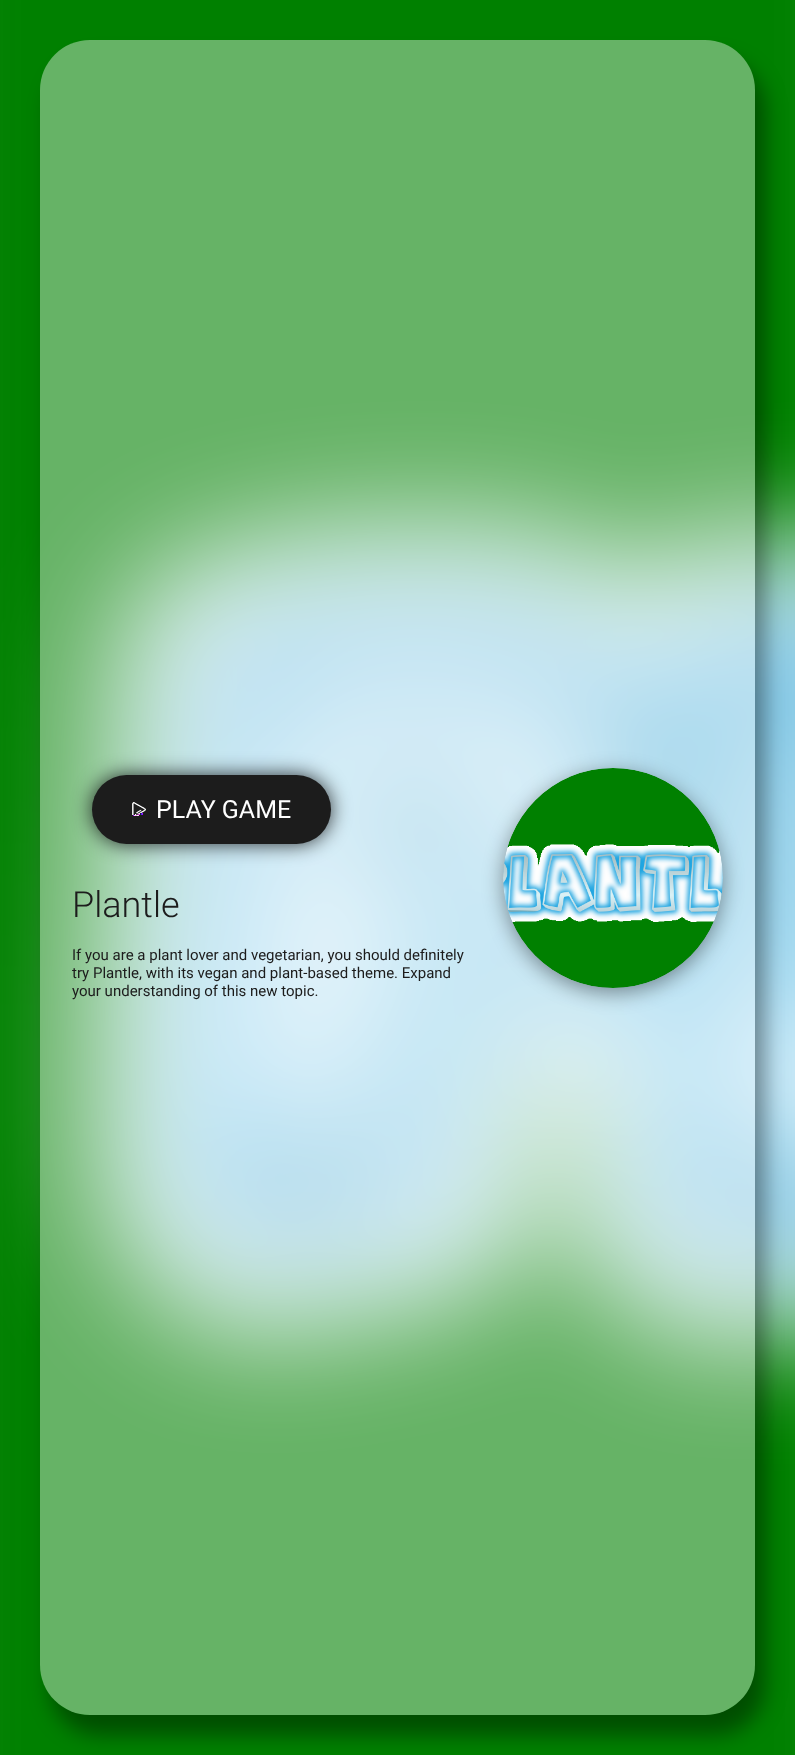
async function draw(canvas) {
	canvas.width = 795;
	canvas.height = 1755;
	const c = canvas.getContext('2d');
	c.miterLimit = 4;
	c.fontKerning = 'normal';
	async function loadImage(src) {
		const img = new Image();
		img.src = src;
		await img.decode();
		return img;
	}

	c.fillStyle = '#fff';
	c.fillRect(0, 0, 795, 1755);
	c.drawImage(await loadImage('img1.png'), 0, 0, 795, 1755);
	c.save();
	c.beginPath();
	c.moveTo(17, 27);
	c.lineTo(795, 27);
	c.lineTo(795, 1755);
	c.lineTo(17, 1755);
	c.closePath();
	c.moveTo(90, 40);
	c.lineTo(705, 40);
	c.bezierCurveTo(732.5, 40, 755, 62.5, 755, 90);
	c.lineTo(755, 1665);
	c.bezierCurveTo(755, 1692.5, 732.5, 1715, 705, 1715);
	c.lineTo(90, 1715);
	c.bezierCurveTo(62.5, 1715, 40, 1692.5, 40, 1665);
	c.lineTo(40, 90);
	c.bezierCurveTo(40, 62.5, 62.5, 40, 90, 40);
	c.closePath();
	c.clip('evenodd');
	c.fillStyle = '#00000066';
	c.filter = 'blur(10.5px)';
	c.beginPath();
	c.roundRect(50, 60, 715, 1675, 50);
	c.fill();
	c.filter = 'none';
	c.restore();
	c.fillStyle = '#ffffff66';
	c.beginPath();
	c.roundRect(40, 40, 715, 1675, 50);
	c.fill();
	c.fillStyle = '#000000cc';
	c.filter = 'blur(10px)';
	c.beginPath();
	c.roundRect(92, 775, 239, 69, 34.5);
	c.fill();
	c.filter = 'none';
	c.fillStyle = '#1c1c1c';
	c.beginPath();
	c.roundRect(92, 775, 239, 69, 34.5);
	c.fill();
	c.drawImage(await loadImage('img2.png'), 132, 802, 14, 14);
	c.font = '25px Roboto';
	c.fillStyle = '#fff';
	c.fillText('PLAY GAME', 156, 818);
	c.font = '300 36px Roboto';
	c.fillStyle = '#1c1c1c';
	c.fillText('Plantle', 72, 917);
	c.font = '15px Roboto';
	for (const [text, x, y] of [
		['If you are a plant lover and vegetarian, you should definitely', 72, 960],
		['try Plantle, with its vegan and plant-based theme. Expand', 72, 978],
		['your understanding of this new topic.', 72, 996],
	]) {
		c.fillText(text, x, y);
	}
	c.fillStyle = '#00000066';
	c.filter = 'blur(10px)';
	c.beginPath();
	c.roundRect(503, 773, 220, 220, 110);
	c.fill();
	c.filter = 'none';
	c.drawImage(await loadImage('img3.png'), 503, 768, 220, 220);
}

draw(document.querySelector('canvas'));
